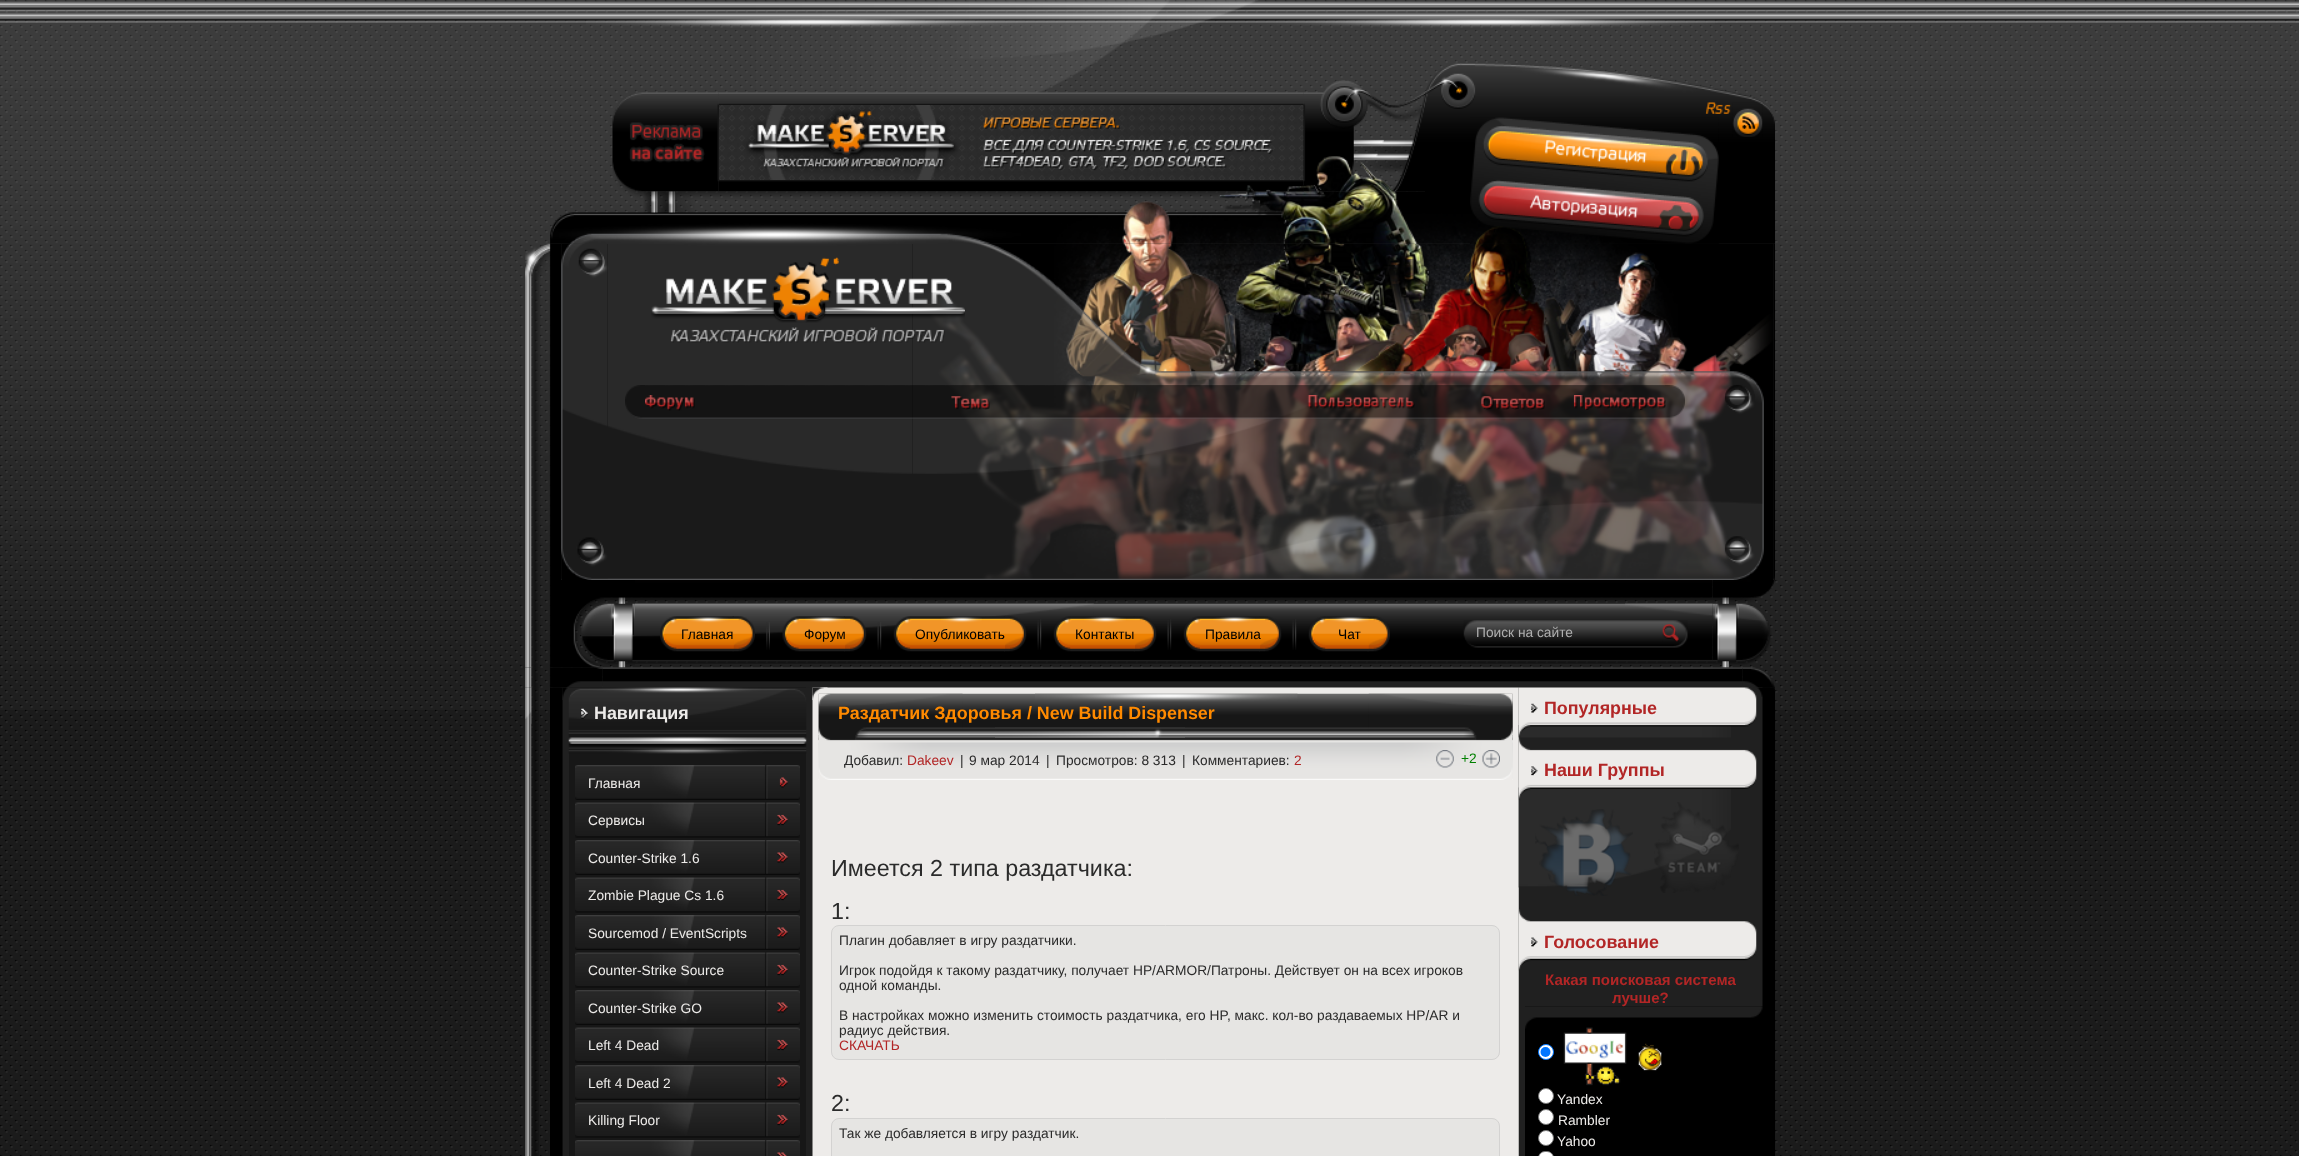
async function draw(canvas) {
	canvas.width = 2299;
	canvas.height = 1156;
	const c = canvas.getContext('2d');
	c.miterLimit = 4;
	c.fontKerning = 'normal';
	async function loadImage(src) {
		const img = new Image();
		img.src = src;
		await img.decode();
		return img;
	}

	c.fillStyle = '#1b1b1b';
	c.fillRect(0, 0, 2299, 1156);
	c.drawImage(await loadImage('img1.png'), 0, 710, 2298, 446);
	c.drawImage(await loadImage('img2.png'), 0, 0, 2299, 710);
	c.drawImage(await loadImage('img3.png'), 586, 0, 1129, 93);
	c.drawImage(await loadImage('img13.png'), 525, 243, 37, 337);
	c.drawImage(await loadImage('img14.png'), 1773, 243, 2, 337);
	c.drawImage(await loadImage('img15.png'), 561, 243, 1213, 337);
	c.drawImage(await loadImage('img16.png'), 561, 243, 47, 337);
	c.drawImage(await loadImage('img17.png'), 912, 243, 862, 337);
	c.drawImage(await loadImage('img4.png'), 550, 191, 875, 53);
	c.drawImage(await loadImage('img5.png'), 612, 92, 107, 100);
	c.drawImage(await loadImage('img6.png'), 1303, 80, 122, 112);
	c.drawImage(await loadImage('img7.png'), 718, 92, 586, 100);
	c.drawImage(await loadImage('img8.png'), 1246, 185, 58, 7);
	c.drawImage(await loadImage('img9.png'), 719, 105, 585, 75);
	c.drawImage(await loadImage('img10.png'), 1425, 63, 350, 181);
	c.drawImage(await loadImage('img11.png'), 1470, 117, 249, 127);
	c.drawImage(await loadImage('img12.png'), 1732, 102, 31, 35);
	c.drawImage(await loadImage('img18.png'), 608, 244, 304, 230);
	c.drawImage(await loadImage('img19.png'), 651, 257, 314, 86);
	c.drawImage(await loadImage('img20.png'), 625, 385, 20, 34);
	c.drawImage(await loadImage('img21.png'), 1665, 385, 20, 34);
	c.drawImage(await loadImage('img22.png'), 645, 385, 1020, 34);
	c.drawImage(await loadImage('img23.png'), 645, 395, 50, 16);
	c.drawImage(await loadImage('img24.png'), 951, 396, 39, 14);
	c.drawImage(await loadImage('img25.png'), 1307, 395, 108, 14);
	c.drawImage(await loadImage('img26.png'), 1481, 396, 64, 14);
	c.drawImage(await loadImage('img27.png'), 1573, 395, 93, 15);
	c.drawImage(await loadImage('img28.png'), 525, 580, 110, 88);
	c.drawImage(await loadImage('img29.png'), 1712, 580, 63, 88);
	c.drawImage(await loadImage('img30.png'), 635, 580, 1078, 84);
	c.drawImage(await loadImage('img31.png'), 635, 603, 459, 34);
	c.drawImage(await loadImage('img32.png'), 1625, 603, 88, 13);
	c.drawImage(await loadImage('img33.png'), 766, 622, 4, 28);
	c.drawImage(await loadImage('img34.png'), 732, 616, 23, 36);
	c.drawImage(await loadImage('img35.png'), 660, 616, 74, 36);
	c.drawImage(await loadImage('img36.png'), 687, 616, 42, 7);
	c.font = '13.75px Liberation Sans';
	c.fillStyle = '#000';
	c.fillText('Главная', 681, 639);
	c.drawImage(await loadImage('img37.png'), 877, 622, 5, 28);
	c.drawImage(await loadImage('img38.png'), 843, 616, 24, 36);
	c.drawImage(await loadImage('img39.png'), 782, 616, 63, 36);
	c.drawImage(await loadImage('img40.png'), 805, 616, 40, 7);
	c.fillText('Форум', 804, 639);
	c.drawImage(await loadImage('img41.png'), 1037, 619, 5, 31);
	c.drawImage(await loadImage('img42.png'), 1003, 616, 24, 36);
	c.drawImage(await loadImage('img43.png'), 893, 616, 112, 36);
	c.drawImage(await loadImage('img44.png'), 941, 616, 41, 7);
	c.fillText('Опубликовать', 915, 639);
	c.drawImage(await loadImage('img45.png'), 1167, 619, 5, 31);
	c.drawImage(await loadImage('img46.png'), 1133, 616, 24, 36);
	c.drawImage(await loadImage('img47.png'), 1053, 616, 82, 36);
	c.drawImage(await loadImage('img48.png'), 1084, 616, 42, 7);
	c.fillText('Контакты', 1075, 639);
	c.drawImage(await loadImage('img45.png'), 1292, 619, 5, 31);
	c.drawImage(await loadImage('img49.png'), 1258, 616, 24, 36);
	c.drawImage(await loadImage('img50.png'), 1183, 616, 77, 36);
	c.drawImage(await loadImage('img51.png'), 1213, 616, 42, 7);
	c.fillText('Правила', 1205, 639);
	c.drawImage(await loadImage('img52.png'), 1367, 616, 23, 36);
	c.drawImage(await loadImage('img53.png'), 1308, 616, 61, 36);
	c.drawImage(await loadImage('img54.png'), 1330, 616, 39, 7);
	c.fillText('Чат', 1338, 639);
	c.drawImage(await loadImage('img55.png'), 1463, 620, 225, 28);
	c.fillStyle = '#aeaeae';
	c.fillText('Поиск на сайте', 1476, 637);
	c.drawImage(await loadImage('img56.png'), 1662, 624, 17, 18);
	c.drawImage(await loadImage('img57.png'), 525, 667, 78, 21);
	c.drawImage(await loadImage('img58.png'), 1742, 667, 33, 21);
	c.drawImage(await loadImage('img59.png'), 602, 667, 1141, 21);
	c.drawImage(await loadImage('img60.png'), 525, 687, 14, 469);
	c.drawImage(await loadImage('img61.png'), 525, 687, 7, 37);
	c.drawImage(await loadImage('img62.png'), 550, 687, 1225, 469);
	c.drawImage(await loadImage('img63.png'), 1757, 687, 18, 10);
	c.drawImage(await loadImage('img64.png'), 562, 687, 6, 13);
	c.drawImage(await loadImage('img65.png'), 812, 687, 16, 13);
	c.fillStyle = '#171717';
	c.fillRect(569, 687, 237, 469);
	c.drawImage(await loadImage('img66.png'), 568, 687, 239, 67);
	c.font = 'bold 17.9px Liberation Sans';
	c.fillStyle = '#edebe9';
	c.fillText('Навигация', 594, 719);
	c.drawImage(await loadImage('img67.png'), 575, 765, 225, 35);
	c.font = '13.75px Liberation Sans';
	c.fillText('Главная', 588, 788);
	c.drawImage(await loadImage('img68.png'), 575, 802, 225, 36);
	c.fillText('Сервисы', 588, 825);
	c.drawImage(await loadImage('img69.png'), 575, 840, 225, 35);
	c.fillText('Counter-Strike 1.6', 588, 863);
	c.drawImage(await loadImage('img68.png'), 575, 877, 225, 36);
	c.fillText('Zombie Plague Cs 1.6', 588, 900);
	c.drawImage(await loadImage('img69.png'), 575, 915, 225, 35);
	c.fillText('Sourcemod / EventScripts', 588, 938);
	c.drawImage(await loadImage('img68.png'), 575, 952, 225, 36);
	c.fillText('Counter-Strike Source', 588, 975);
	c.drawImage(await loadImage('img69.png'), 575, 990, 225, 35);
	c.fillText('Counter-Strike GO', 588, 1013);
	c.drawImage(await loadImage('img68.png'), 575, 1027, 225, 36);
	c.fillText('Left 4 Dead', 588, 1050);
	c.drawImage(await loadImage('img69.png'), 575, 1065, 225, 35);
	c.fillText('Left 4 Dead 2', 588, 1088);
	c.drawImage(await loadImage('img68.png'), 575, 1102, 225, 36);
	c.fillText('Killing Floor', 588, 1125);
	c.drawImage(await loadImage('img70.png'), 575, 1140, 225, 16);
	c.drawImage(await loadImage('img71.png'), 818, 693, 695, 87);
	c.drawImage(await loadImage('img72.png'), 818, 693, 145, 87);
	c.drawImage(await loadImage('img73.png'), 1368, 693, 145, 87);
	c.drawImage(await loadImage('img74.png'), 1035, 693, 263, 9);
	c.drawImage(await loadImage('img75.png'), 995, 727, 190, 11);
	c.font = 'bold 17.9px Liberation Sans';
	c.fillStyle = '#ff8a00';
	c.fillText('Раздатчик Здоровья / New Build Dispenser', 838, 719);
	c.font = '13.75px Liberation Sans';
	c.fillStyle = '#2b2b2b';
	c.fillText('Добавил:', 844, 765);
	c.fillStyle = '#b22626';
	c.fillText('Dakeev', 907, 765);
	c.fillStyle = '#2b2b2b';
	for (const [text, x, y] of [
		['|', 960, 765],
		['9 мар 2014', 969, 765],
		['|', 1046, 765],
		['Просмотров: 8 313', 1056, 765],
		['|', 1182, 765],
		['Комментариев:', 1192, 765],
	]) {
		c.fillText(text, x, y);
	}
	c.fillStyle = '#b22626';
	c.fillText('2', 1294, 765);
	c.drawImage(await loadImage('img76.png'), 1436, 750, 18, 18);
	c.fillStyle = '#008000';
	c.fillText('+2', 1461, 763);
	c.drawImage(await loadImage('img77.png'), 1482, 750, 18, 18);
	c.font = '23.3px Liberation Sans';
	c.fillStyle = '#2b2b2b';
	c.fillText('Имеется 2 типа раздатчика:', 831, 876);
	c.fillText('1:', 831, 919);
	c.fillStyle = '#e6e5e3';
	c.beginPath();
	c.roundRect(831.5, 925.5, 668, 134, 7.5);
	c.fill();
	c.strokeStyle = '#d3d2d1';
	c.stroke();
	c.font = '13.75px Liberation Sans';
	c.fillStyle = '#2b2b2b';
	for (const [text, x, y] of [
		['Плагин добавляет в игру раздатчики.', 839, 945],
		['Игрок подойдя к такому раздатчику, получает HP/ARMOR/Патроны. Действует он на всех игроков', 839, 975],
		['одной команды.', 839, 990],
		['В настройках можно изменить стоимость раздатчика, его HP, макс. кол-во раздаваемых HP/AR и', 839, 1020],
		['радиус действия.', 839, 1035],
	]) {
		c.fillText(text, x, y);
	}
	c.fillStyle = '#b22626';
	c.fillText('СКАЧАТЬ', 839, 1050);
	c.font = '23.3px Liberation Sans';
	c.fillStyle = '#2b2b2b';
	c.fillText('2:', 831, 1111);
	c.fillStyle = '#e6e5e3';
	c.beginPath();
	c.roundRect(831.5, 1118.5, 668, 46, 7.5);
	c.fill();
	c.stroke();
	c.font = '13.75px Liberation Sans';
	c.fillStyle = '#2b2b2b';
	c.fillText('Так же добавляется в игру раздатчик.', 839, 1138);
	c.drawImage(await loadImage('img78.png'), 1518, 725, 213, 13);
	c.drawImage(await loadImage('img79.png'), 1518, 687, 239, 50);
	c.font = 'bold 17.9px Liberation Sans';
	c.fillStyle = '#b22626';
	c.fillText('Популярные', 1544, 714);
	c.drawImage(await loadImage('img80.png'), 1518, 787, 213, 101);
	c.drawImage(await loadImage('img81.png'), 1518, 737, 239, 63);
	c.fillText('Наши Группы', 1544, 776);
	c.drawImage(await loadImage('img82.png'), 1535, 809, 98, 87);
	c.drawImage(await loadImage('img83.png'), 1654, 802, 85, 91);
	c.drawImage(await loadImage('img84.png'), 1518, 909, 239, 62);
	c.fillText('Голосование', 1544, 948);
	c.font = 'bold 15.1px Liberation Sans';
	c.fillText('Какая поисковая система', 1545, 985);
	c.fillStyle = '#000';
	c.fillRect(1525, 1006, 238, 150);
	c.drawImage(await loadImage('img85.png'), 1525, 1006, 238, 23);
	c.fillStyle = '#b22626';
	c.fillText('лучше?', 1612, 1003);
	c.fillStyle = '#fff';
	c.beginPath();
	c.arc(1546, 1052, 7.5, 0, 2 * Math.PI);
	c.fill();
	c.strokeStyle = '#0075ff';
	c.stroke();
	c.fillStyle = '#0075ff';
	c.beginPath();
	c.arc(1545.5, 1052, 5, 0, 2 * Math.PI);
	c.fill();
	c.drawImage(await loadImage('img86.png'), 1563, 1027, 64, 59);
	c.drawImage(await loadImage('img87.png'), 1638, 1043, 24, 28);
	c.fillStyle = '#fff';
	c.beginPath();
	c.arc(1546, 1096, 7.5, 0, 2 * Math.PI);
	c.fill();
	c.strokeStyle = '#767676';
	c.stroke();
	c.font = '13.75px Liberation Sans';
	c.fillStyle = '#edebe9';
	c.fillText('Yandex', 1557, 1104);
	c.fillStyle = '#fff';
	c.beginPath();
	c.arc(1546, 1117, 7.5, 0, 2 * Math.PI);
	c.fill();
	c.stroke();
	c.fillStyle = '#edebe9';
	c.fillText('Rambler', 1558, 1125);
	c.fillStyle = '#fff';
	c.beginPath();
	c.arc(1546, 1138, 7.5, 0, 2 * Math.PI);
	c.fill();
	c.stroke();
	c.fillStyle = '#edebe9';
	c.fillText('Yahoo', 1557, 1146);
	c.fillStyle = '#fff';
	c.beginPath();
	c.roundRect(1538.5, 1151.5, 15, 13, 7.5);
	c.fill();
	c.stroke();
}

draw(document.querySelector('canvas'));
